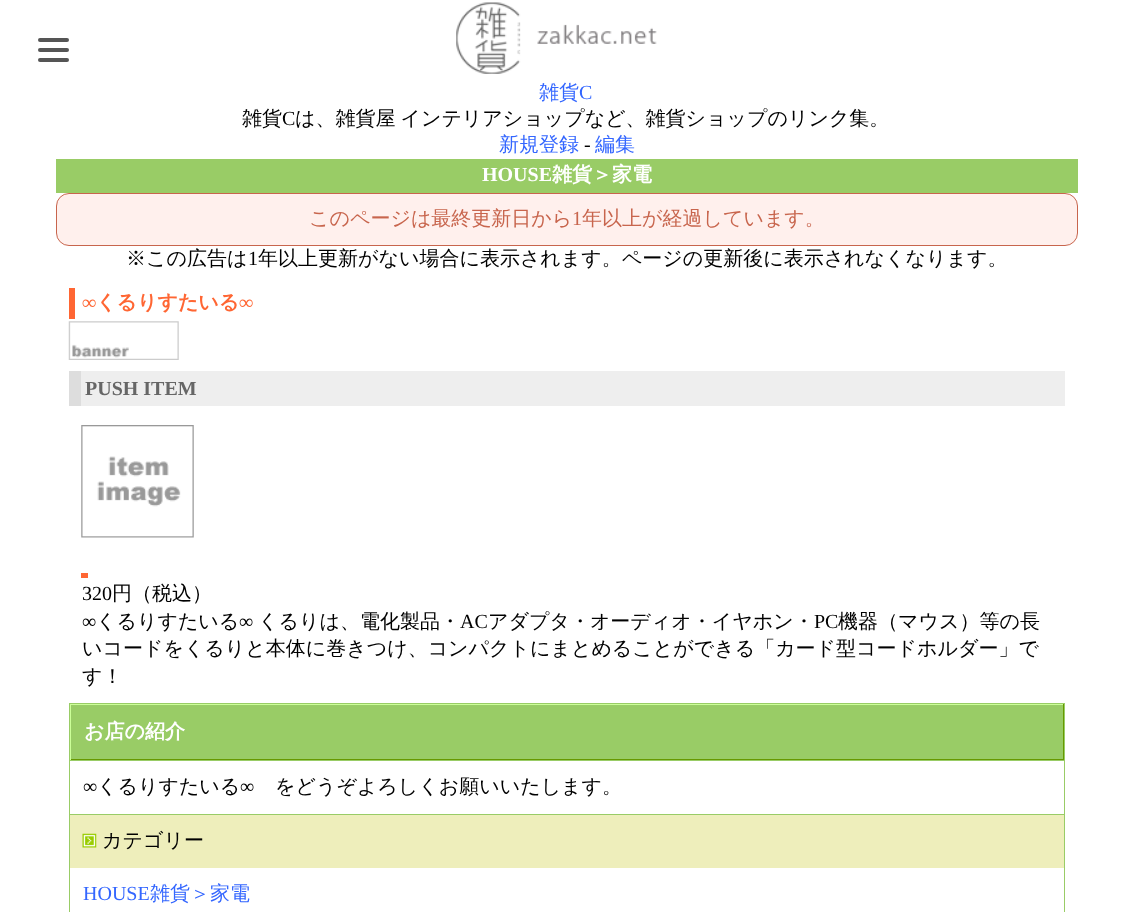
async function draw(canvas) {
	canvas.width = 1133;
	canvas.height = 912;
	const c = canvas.getContext('2d');
	c.miterLimit = 4;
	c.fontKerning = 'normal';
	async function loadImage(src) {
		const img = new Image();
		img.src = src;
		await img.decode();
		return img;
	}

	c.fillStyle = '#fff';
	c.fillRect(0, 0, 1133, 912);
	c.drawImage(await loadImage('img1.png'), 456, 2, 201, 72);
	c.font = '500 20px WenQuanYi Zen Hei';
	c.fillStyle = '#36f';
	c.fillText('雑貨', 539, 99);
	c.font = '20px Liberation Serif';
	c.fillText('C', 579, 99);
	c.font = '500 20px WenQuanYi Zen Hei';
	c.fillStyle = '#000';
	c.fillText('雑貨', 242, 125);
	c.font = '20px Liberation Serif';
	c.fillText('C', 282, 125);
	c.wordSpacing = '-1px';
	c.font = '500 20px WenQuanYi Zen Hei';
	c.fillText('は、雑貨屋 インテリアショップなど、雑貨ショップのリンク集。', 295, 125);
	c.wordSpacing = '0px';
	c.fillStyle = '#36f';
	c.fillText('新規登録', 499, 151);
	c.font = '20px Liberation Serif';
	c.fillStyle = '#000';
	c.fillText('-', 584, 151);
	c.font = '500 20px WenQuanYi Zen Hei';
	c.fillStyle = '#36f';
	c.fillText('編集', 595, 151);
	c.fillStyle = '#9c6';
	c.fillRect(56, 159, 1022, 34);
	c.font = 'bold 20px Liberation Serif';
	c.fillStyle = '#fff';
	c.fillText('HOUSE', 482, 181);
	c.font = 'bold 20px WenQuanYi Zen Hei';
	c.fillText('雑貨＞家電', 552, 181);
	c.fillStyle = '#fff0ed';
	c.beginPath();
	c.roundRect(56.5, 193.5, 1021, 52, 12.5);
	c.fill();
	c.strokeStyle = '#c8654d';
	c.stroke();
	c.font = '500 20px WenQuanYi Zen Hei';
	c.fillStyle = '#c8654d';
	c.fillText('このページは最終更新日から', 309, 225);
	c.font = '20px Liberation Serif';
	c.fillText('1', 572, 225);
	c.font = '500 20px WenQuanYi Zen Hei';
	c.fillText('年以上が経過しています。', 582, 225);
	c.fillStyle = '#000';
	c.fillText('※この広告は', 126, 265);
	c.font = '20px Liberation Serif';
	c.fillText('1', 248, 265);
	c.font = '500 20px WenQuanYi Zen Hei';
	c.fillText('年以上更新がない場合に表示されます。ページの更新後に表示されなくなります。', 258, 265);
	c.fillStyle = '#555';
	c.beginPath();
	c.roundRect(38, 38, 31, 4, 2);
	c.fill();
	c.beginPath();
	c.roundRect(38, 48, 31, 4, 2);
	c.fill();
	c.beginPath();
	c.roundRect(38, 58, 31, 4, 2);
	c.fill();
	c.fillStyle = '#f63';
	c.fillRect(69, 288, 6, 31);
	c.font = 'bold 20px Liberation Serif';
	c.fillText('∞', 82, 309);
	c.font = 'bold 20px WenQuanYi Zen Hei';
	c.fillText('くるりすたいる', 96, 309);
	c.font = 'bold 20px Liberation Serif';
	c.fillText('∞', 239, 309);
	c.drawImage(await loadImage('img2.png'), 68, 321, 111, 39);
	c.fillStyle = '#eee';
	c.fillRect(81, 371, 984, 35);
	c.fillStyle = '#ddd';
	c.fillRect(69, 371, 12, 35);
	c.fillStyle = '#666';
	c.fillText('PUSH ITEM', 85, 395);
	c.drawImage(await loadImage('img3.png'), 81, 425, 113, 113);
	c.fillStyle = '#f63';
	c.fillRect(81, 573, 7, 5);
	c.font = '20px Liberation Serif';
	c.fillStyle = '#000';
	c.fillText('320', 82, 600);
	c.font = '500 20px WenQuanYi Zen Hei';
	c.fillText('円（税込）', 112, 600);
	c.font = '20px Liberation Serif';
	c.fillText('∞', 82, 628);
	c.font = '500 20px WenQuanYi Zen Hei';
	c.fillText('くるりすたいる', 96, 628);
	c.font = '20px Liberation Serif';
	c.fillText('∞', 239, 628);
	c.font = '500 20px WenQuanYi Zen Hei';
	c.fillText('くるりは、電化製品・', 258, 628);
	c.font = '20px Liberation Serif';
	c.fillText('AC', 460, 628);
	c.font = '500 20px WenQuanYi Zen Hei';
	c.fillText('アダプタ・オーディオ・イヤホン・', 488, 628);
	c.font = '20px Liberation Serif';
	c.fillText('PC', 814, 628);
	c.font = '500 20px WenQuanYi Zen Hei';
	for (const [text, x, y] of [
		['機器（マウス）等の長', 838, 628],
		['いコードをくるりと本体に巻きつけ、コンパクトにまとめることができる「カード型コードホルダー」で', 82, 655],
		['す！', 82, 683],
	]) {
		c.fillText(text, x, y);
	}
	for (const [x, y, w, h, color] of [
		[69, 703, 996, 209, '#9c6'],
		[70, 704, 994, 1, '#cf9'],
		[1063, 704, 1, 56, '#690'],
		[70, 759, 994, 1, '#690'],
		[70, 704, 1, 56, '#cf9'],
	]) {
		c.fillStyle = color;
		c.fillRect(x, y, w, h);
	}
	c.font = 'bold 20px WenQuanYi Zen Hei';
	c.fillStyle = '#fff';
	c.fillText('お店の紹介', 84, 738);
	c.fillRect(70, 761, 994, 53);
	c.font = '20px Liberation Serif';
	c.fillStyle = '#000';
	c.fillText('∞', 83, 793);
	c.font = '500 20px WenQuanYi Zen Hei';
	c.fillText('くるりすたいる', 97, 793);
	c.font = '20px Liberation Serif';
	c.fillText('∞', 240, 793);
	c.font = '500 20px WenQuanYi Zen Hei';
	c.fillText('をどうぞよろしくお願いいたします。', 275, 793);
	c.fillStyle = '#eeb';
	c.fillRect(70, 815, 994, 53);
	c.drawImage(await loadImage('img4.png'), 82, 833, 15, 15);
	c.fillStyle = '#000';
	c.fillText('カテゴリー', 102, 847);
	c.fillStyle = '#fff';
	c.fillRect(70, 868, 994, 44);
	c.font = '20px Liberation Serif';
	c.fillStyle = '#36f';
	c.fillText('HOUSE', 83, 900);
	c.font = '500 20px WenQuanYi Zen Hei';
	c.fillText('雑貨＞家電', 150, 900);
}

draw(document.querySelector('canvas'));
